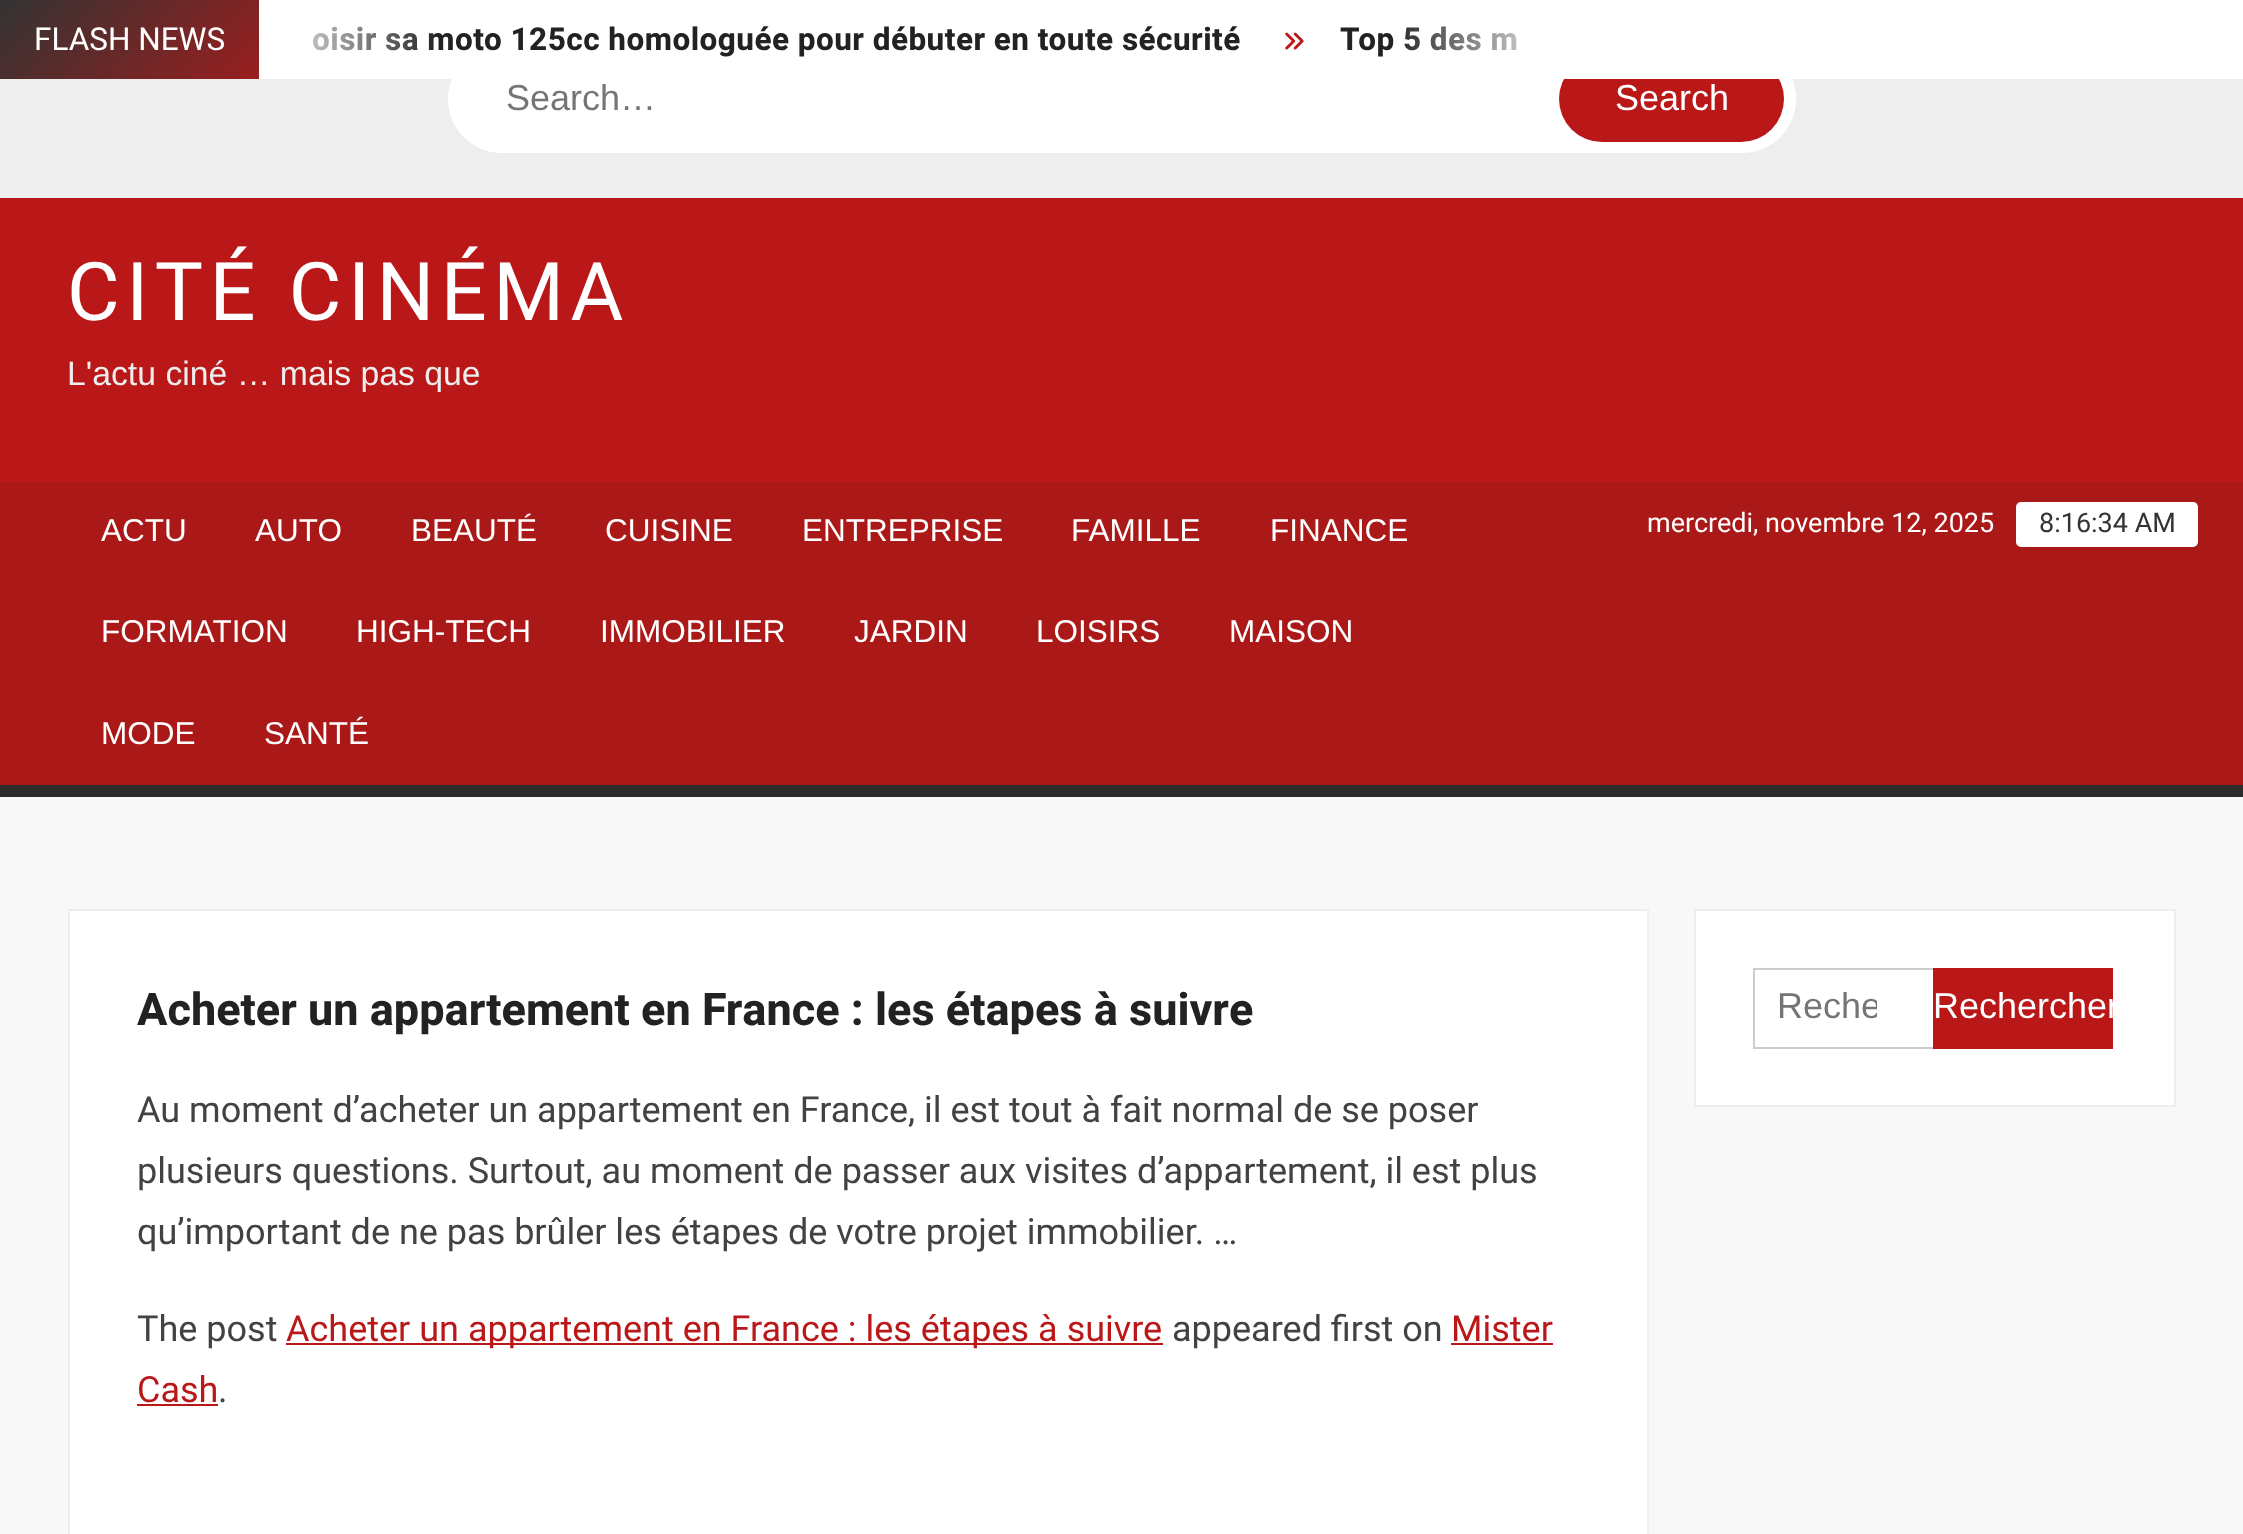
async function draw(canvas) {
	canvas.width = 2243;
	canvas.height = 1534;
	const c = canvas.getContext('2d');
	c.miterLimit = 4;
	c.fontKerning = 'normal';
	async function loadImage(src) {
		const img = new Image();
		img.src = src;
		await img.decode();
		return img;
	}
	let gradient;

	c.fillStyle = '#f8f8f8';
	c.fillRect(0, 0, 2243, 1534);
	c.fillStyle = '#eee';
	c.fillRect(0, 79, 2243, 119);
	c.fillStyle = '#fff';
	c.beginPath();
	c.roundRect(448, 45, 1348, 108, 54);
	c.fill();
	c.fillStyle = '#ba1818';
	c.beginPath();
	c.roundRect(1559, 56, 225, 86, 43);
	c.fill();
	c.fillStyle = '#fff';
	c.fillRect(260, 0, 1983, 79);
	c.letterSpacing = '0.45px';
	c.font = 'bold 31.5px Heebo';
	c.fillStyle = '#222';
	c.fillText('oisir sa moto 125cc homologuée pour débuter en toute sécurité', 312, 50);
	c.drawImage(await loadImage('img1.png'), 1285, 32, 19, 18);
	c.fillText('Top 5 des m', 1340, 50);
	gradient = c.createLinearGradient(855, 495, 180, -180);
	gradient.addColorStop(0, '#ba1818');
	gradient.addColorStop(0.33, '#eee');
	gradient.addColorStop(0.67, '#ba1818');
	gradient.addColorStop(1, '#333');
	c.fillStyle = gradient;
	c.fillRect(0, 0, 259, 79);
	c.letterSpacing = '0px';
	c.font = '31.5px Heebo';
	c.fillStyle = '#fff';
	c.fillText('FLASH NEWS', 34, 50);
	gradient = c.createLinearGradient(259, 39, 439, 39);
	gradient.addColorStop(0, '#fff');
	gradient.addColorStop(1, '#ffffff00');
	c.fillStyle = gradient;
	c.fillRect(259, 0, 176, 79);
	gradient = c.createLinearGradient(1391, 39, 1571, 39);
	gradient.addColorStop(0, '#ffffff00');
	gradient.addColorStop(1, '#fff');
	c.fillStyle = gradient;
	c.fillRect(1404, 26, 112, 25);
	c.font = '36px Arimo';
	c.fillStyle = '#757575';
	c.fillText('Search…', 506, 110);
	c.fillStyle = '#fff';
	c.fillText('Search', 1615, 110);
	c.fillStyle = '#ba1818';
	c.fillRect(0, 198, 2243, 284);
	c.letterSpacing = '6.5px';
	c.font = '81px Heebo';
	c.fillStyle = '#fff';
	c.fillText('CITÉ CINÉMA', 67, 320);
	c.letterSpacing = '0px';
	c.font = '33.75px Arimo';
	c.fillStyle = '#eee';
	c.fillText('L\'actu ciné … mais pas que', 67, 385);
	c.fillStyle = '#aa1818';
	c.fillRect(0, 482, 2243, 303);
	c.fillStyle = '#2c2c2c';
	c.fillRect(0, 785, 2243, 12);
	c.font = '31.5px Arimo';
	c.fillStyle = '#fff';
	for (const [text, x, y] of [
		['ACTU', 101, 541],
		['AUTO', 255, 541],
		['BEAUTÉ', 411, 541],
		['CUISINE', 605, 541],
		['ENTREPRISE', 802, 541],
		['FAMILLE', 1071, 541],
		['FINANCE', 1270, 541],
		['FORMATION', 101, 642],
		['HIGH-TECH', 356, 642],
		['IMMOBILIER', 600, 642],
		['JARDIN', 854, 642],
		['LOISIRS', 1036, 642],
		['MAISON', 1229, 642],
		['MODE', 101, 744],
		['SANTÉ', 264, 744],
	]) {
		c.fillText(text, x, y);
	}
	c.font = '27px Roboto';
	c.fillText('mercredi, novembre 12, 2025', 1647, 532);
	c.beginPath();
	c.roundRect(2016, 502, 182, 45, 5);
	c.fill();
	c.fillStyle = '#333';
	c.fillText('8:16:34 AM', 2039, 532);
	c.fillStyle = '#fff';
	c.beginPath();
	c.rect(69, 910, 1579, 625);
	c.fill();
	c.strokeStyle = '#eee';
	c.lineWidth = 2;
	c.stroke();
	c.font = 'bold 45px Heebo';
	c.fillStyle = '#222';
	c.fillText('Acheter un appartement en France : les étapes à suivre', 137, 1025);
	c.font = '36px Roboto';
	c.fillStyle = '#424242';
	for (const [text, x, y] of [
		['Au moment d’acheter un appartement en France, il est tout à fait normal de se poser', 137, 1122],
		['plusieurs questions. Surtout, au moment de passer aux visites d’appartement, il est plus', 137, 1183],
		['qu’important de ne pas brûler les étapes de votre projet immobilier. …', 137, 1244],
		['The post', 137, 1341],
	]) {
		c.fillText(text, x, y);
	}
	c.fillStyle = '#ba1818';
	c.fillRect(286, 1343, 877, 2);
	c.fillText('Acheter un appartement en France : les étapes à suivre', 286, 1341);
	c.fillStyle = '#424242';
	c.fillText('appeared first on', 1172, 1341);
	c.fillStyle = '#ba1818';
	c.fillText('Mister', 1451, 1341);
	c.fillRect(1451, 1343, 102, 2);
	c.fillText('Cash', 137, 1402);
	c.fillRect(137, 1404, 81, 2);
	c.fillStyle = '#424242';
	c.fillText('.', 218, 1402);
	c.fillStyle = '#fff';
	c.beginPath();
	c.rect(1695, 910, 480, 196);
	c.fill();
	c.stroke();
	c.strokeStyle = '#ccc';
	c.strokeRect(1754, 969, 180, 79);
	c.save();
	c.beginPath();
	c.rect(1778, 988, 99, 40);
	c.clip();
	c.font = '36px Arimo';
	c.fillStyle = '#757575';
	c.fillText('Reche', 1777, 1018);
	c.restore();
	c.fillStyle = '#ba1818';
	c.fillRect(1933, 968, 180, 81);
	c.save();
	c.beginPath();
	c.rect(1933, 968, 180, 81);
	c.clip();
	c.font = '36px Arimo';
	c.fillStyle = '#fff';
	c.fillText('Rechercher', 1933, 1018);
	c.restore();
}

draw(document.querySelector('canvas'));
